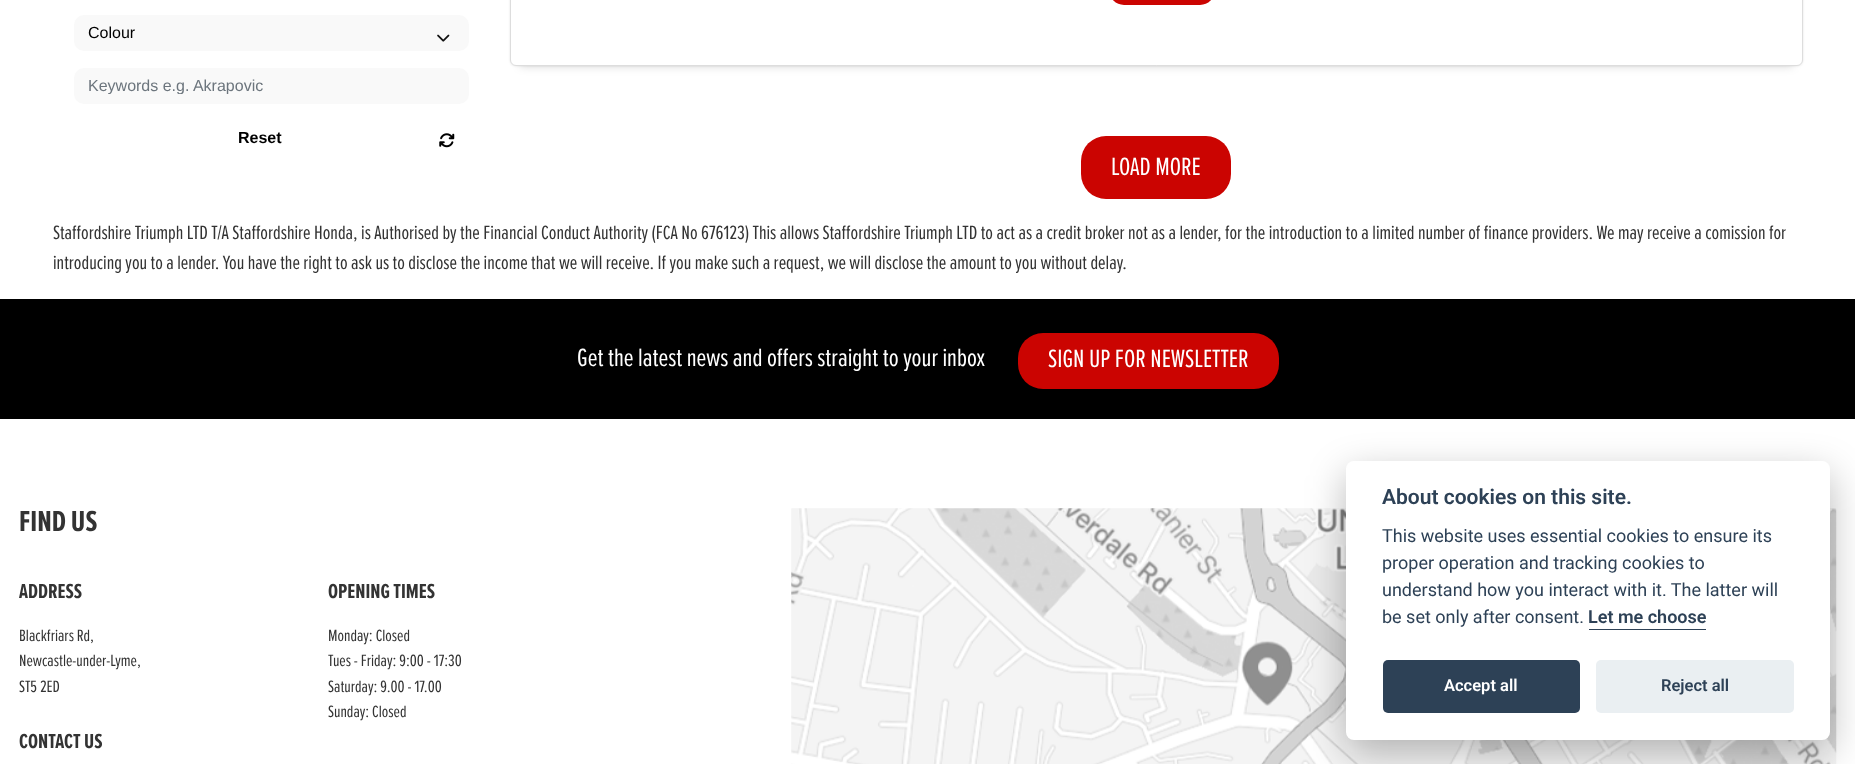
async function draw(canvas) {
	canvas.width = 1855;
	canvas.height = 764;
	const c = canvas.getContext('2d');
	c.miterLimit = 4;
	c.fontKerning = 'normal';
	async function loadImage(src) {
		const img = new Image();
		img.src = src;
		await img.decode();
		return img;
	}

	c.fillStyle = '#fff';
	c.fillRect(0, 0, 1855, 764);
	c.fillStyle = '#f9f9f9';
	c.beginPath();
	c.roundRect(74, 15, 395, 36, 10);
	c.fill();
	c.font = '16px Liberation Sans';
	c.fillStyle = '#000';
	c.fillText('Colour', 88, 38);
	c.drawImage(await loadImage('img1.png'), 437, 34, 13, 8);
	c.fillStyle = '#f9f9f9';
	c.beginPath();
	c.roundRect(74, 68, 395, 36, 10);
	c.fill();
	c.save();
	c.beginPath();
	c.rect(88, 75, 367, 19);
	c.clip();
	c.fillStyle = '#6c757d';
	c.fillText('Keywords e.g. Akrapovic', 88, 91);
	c.restore();
	c.font = 'bold 16px Liberation Sans';
	c.fillStyle = '#000';
	c.fillText('Reset', 238, 143);
	c.drawImage(await loadImage('img2.png'), 439, 133, 16, 15);
	c.fillStyle = '#0000001a';
	c.filter = 'blur(1px)';
	c.beginPath();
	c.roundRect(510, -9, 1293, 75, 6);
	c.fill();
	c.filter = 'none';
	c.fillStyle = '#00000029';
	c.filter = 'blur(5px)';
	c.beginPath();
	c.rect(520, -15, 1273, 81);
	c.fill();
	c.filter = 'none';
	c.fillStyle = '#fff';
	c.beginPath();
	c.roundRect(510.5, -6.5, 1292, 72, 5.5);
	c.fill();
	c.strokeStyle = '#ddd';
	c.stroke();
	c.fillStyle = '#cb0401';
	c.beginPath();
	c.roundRect(1109, -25, 106, 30, 25);
	c.fill();
	c.beginPath();
	c.roundRect(1081, 136, 150, 63, 25);
	c.fill();
	c.font = '26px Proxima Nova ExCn';
	c.fillStyle = '#fff';
	c.fillText('LOAD MORE', 1111, 175);
	c.font = '20px Proxima Nova ExCn';
	c.fillStyle = '#333';
	c.fillText('Staffordshire Triumph LTD T/A Staffordshire Honda, is Authorised by the Financial Conduct Authority (FCA No 676123) This allows Staffordshire Triumph LTD to act as a credit broker not as a lender, for the introduction to a limited number of finance providers. We may receive a comission for', 53, 239);
	c.fillText('introducing you to a lender. You have the right to ask us to disclose the income that we will receive. If you make such a request, we will disclose the amount to you without delay.', 53, 269);
	c.fillStyle = '#000';
	c.fillRect(0, 299, 1855, 120);
	c.font = '26px Proxima Nova ExCn';
	c.fillStyle = '#fff';
	c.fillText('Get the latest news and offers straight to your inbox', 577, 366);
	c.fillStyle = '#cb0401';
	c.beginPath();
	c.roundRect(1018, 333, 261, 56, 25);
	c.fill();
	c.fillStyle = '#fff';
	c.fillText('SIGN UP FOR NEWSLETTER', 1048, 367);
	c.font = 'bold 30px Proxima Nova ExCn';
	c.fillStyle = '#333';
	c.fillText('FIND US', 19, 531);
	c.font = 'bold 21px Proxima Nova ExCn';
	c.fillText('ADDRESS', 19, 598);
	c.font = '17px Proxima Nova ExCn';
	for (const [text, x, y] of [
		['Blackfriars Rd,', 19, 641],
		['Newcastle-under-Lyme,', 19, 666],
		['ST5 2ED', 19, 692],
	]) {
		c.fillText(text, x, y);
	}
	c.font = 'bold 21px Proxima Nova ExCn';
	c.fillText('CONTACT US', 19, 748);
	c.fillText('OPENING TIMES', 328, 598);
	c.font = '17px Proxima Nova ExCn';
	for (const [text, x, y] of [
		['Monday: Closed', 328, 641],
		['Tues - Friday: 9:00 - 17:30', 328, 666],
		['Saturday: 9.00 - 17.00', 328, 692],
		['Sunday: Closed', 328, 717],
	]) {
		c.fillText(text, x, y);
	}
	c.drawImage(await loadImage('img3.png'), 791, 508, 1046, 256);
	c.fillStyle = '#02020347';
	c.filter = 'blur(19px)';
	c.beginPath();
	c.roundRect(1346, 474, 484, 279, 8);
	c.fill();
	c.filter = 'none';
	c.fillStyle = '#fff';
	c.beginPath();
	c.roundRect(1346, 461, 484, 279, 8);
	c.fill();
	c.font = '600 21px Roboto';
	c.fillStyle = '#2d4156';
	c.fillText('About cookies on this site.', 1382, 504);
	c.font = '18px Roboto';
	for (const [text, x, y] of [
		['This website uses essential cookies to ensure its', 1382, 542],
		['proper operation and tracking cookies to', 1382, 569],
		['understand how you interact with it. The latter will', 1382, 596],
		['be set only after consent.', 1382, 623],
	]) {
		c.fillText(text, x, y);
	}
	c.font = '600 18px Roboto';
	c.fillText('Let me choose', 1588, 623);
	c.fillRect(1589, 629, 117, 1);
	c.beginPath();
	c.roundRect(1383, 660, 197, 53, 5);
	c.fill();
	c.font = '600 16.5px Roboto';
	c.fillStyle = '#fff';
	c.fillText('Accept all', 1444, 691);
	c.fillStyle = '#eaeff2';
	c.beginPath();
	c.roundRect(1596, 660, 198, 53, 5);
	c.fill();
	c.fillStyle = '#2d4156';
	c.fillText('Reject all', 1661, 691);
}

draw(document.querySelector('canvas'));
